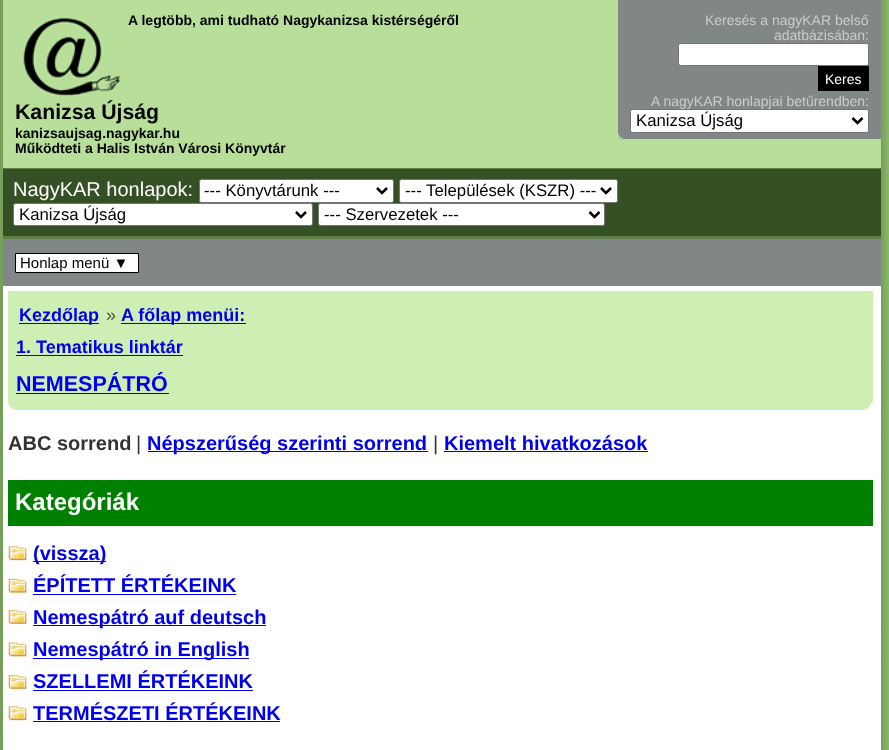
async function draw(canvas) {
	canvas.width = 889;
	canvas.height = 750;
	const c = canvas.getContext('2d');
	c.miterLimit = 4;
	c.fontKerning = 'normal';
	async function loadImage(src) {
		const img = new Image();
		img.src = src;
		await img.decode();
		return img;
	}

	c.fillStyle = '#779f59';
	c.fillRect(0, 0, 889, 750);
	c.drawImage(await loadImage('img1.png'), 882, 0, 7, 750);
	for (const [x, y, w, h, color] of [
		[3, 286, 878, 464, '#fff'],
		[3, 0, 878, 168, '#b7df99'],
		[3, 236, 878, 3, '#5f7f47'],
	]) {
		c.fillStyle = color;
		c.fillRect(x, y, w, h);
	}
	c.drawImage(await loadImage('img2.png'), 22, 16, 98, 80);
	c.font = 'bold 14px Liberation Sans';
	c.fillStyle = '#000';
	c.fillText('A legtöbb, ami tudható Nagykanizsa kistérségéről', 128, 25);
	c.font = 'bold 21.25px Liberation Sans';
	c.fillText('Kanizsa Újság', 15, 119);
	c.font = 'bold 14px Liberation Sans';
	c.fillText('kanizsaujsag.nagykar.hu', 15, 138);
	c.fillText('Működteti a Halis István Városi Könyvtár', 15, 153);
	c.fillStyle = '#818787';
	c.fillRect(618, 0, 263, 139);
	c.drawImage(await loadImage('img3.png'), 618, 133, 5, 6);
	c.font = '14px Liberation Sans';
	c.fillStyle = '#ccc';
	c.fillText('Keresés a nagyKAR belső', 705, 25);
	c.fillText('adatbázisában:', 774, 40);
	c.fillStyle = '#fff';
	c.beginPath();
	c.roundRect(678.5, 43.5, 190, 22, 2);
	c.fill();
	c.strokeStyle = '#767676';
	c.stroke();
	c.fillStyle = '#000';
	c.fillRect(818, 66, 51, 25);
	c.fillStyle = '#fff';
	c.fillText('Keres', 825, 84);
	c.fillStyle = '#ccc';
	c.fillText('A nagyKAR honlapjai betűrendben:', 651, 106);
	c.fillStyle = '#fff';
	c.beginPath();
	c.roundRect(630.5, 109.5, 238, 23, 2);
	c.fill();
	c.stroke();
	c.beginPath();
	c.moveTo(852.5, 118);
	c.lineTo(857.5, 123);
	c.lineTo(862.5, 118);
	c.strokeStyle = '#000';
	c.lineWidth = 2.5;
	c.stroke();
	c.font = '16.75px Liberation Sans';
	c.fillStyle = '#000';
	c.fillText('Kanizsa Újság', 636, 126);
	c.fillStyle = '#365026';
	c.fillRect(3, 169, 878, 67);
	c.fillStyle = '#5f7f47';
	c.fillRect(3, 168, 878, 1);
	c.font = '20px Liberation Sans';
	c.fillStyle = '#fff';
	c.fillText('NagyKAR honlapok:', 13, 196);
	c.beginPath();
	c.roundRect(199.5, 179.5, 194, 23, 2);
	c.fill();
	c.strokeStyle = '#767676';
	c.lineWidth = 1;
	c.stroke();
	c.beginPath();
	c.moveTo(377, 188);
	c.lineTo(382, 193);
	c.lineTo(387, 188);
	c.strokeStyle = '#000';
	c.lineWidth = 2.5;
	c.stroke();
	c.font = '16.75px Liberation Sans';
	c.fillStyle = '#000';
	c.fillText('--- Könyvtárunk ---', 204, 196);
	c.fillStyle = '#fff';
	c.beginPath();
	c.roundRect(399.5, 179.5, 218, 23, 2);
	c.fill();
	c.strokeStyle = '#767676';
	c.lineWidth = 1;
	c.stroke();
	c.beginPath();
	c.moveTo(601, 188);
	c.lineTo(606, 193);
	c.lineTo(611, 188);
	c.strokeStyle = '#000';
	c.lineWidth = 2.5;
	c.stroke();
	c.fillStyle = '#000';
	c.fillText('--- Települések (KSZR) ---', 405, 196);
	c.fillStyle = '#fff';
	c.beginPath();
	c.roundRect(13.5, 203.5, 299, 22, 2);
	c.fill();
	c.strokeStyle = '#767676';
	c.lineWidth = 1;
	c.stroke();
	c.beginPath();
	c.moveTo(296, 212);
	c.lineTo(301, 217);
	c.lineTo(306, 212);
	c.strokeStyle = '#000';
	c.lineWidth = 2.5;
	c.stroke();
	c.fillStyle = '#000';
	c.fillText('Kanizsa Újság', 19, 220);
	c.fillStyle = '#fff';
	c.beginPath();
	c.roundRect(318.5, 203.5, 286, 22, 2);
	c.fill();
	c.strokeStyle = '#767676';
	c.lineWidth = 1;
	c.stroke();
	c.beginPath();
	c.moveTo(589.5, 212);
	c.lineTo(594.5, 217);
	c.lineTo(599.5, 212);
	c.strokeStyle = '#000';
	c.lineWidth = 2.5;
	c.stroke();
	c.fillStyle = '#000';
	c.fillText('--- Szervezetek ---', 324, 220);
	c.fillStyle = '#818787';
	c.fillRect(3, 239, 878, 47);
	c.fillStyle = '#fff';
	c.beginPath();
	c.rect(15.5, 253.5, 123, 19);
	c.fill();
	c.lineWidth = 1;
	c.stroke();
	c.font = '15px Liberation Sans';
	c.fillStyle = '#000';
	c.fillText('Honlap menü ▼', 20, 268);
	c.fillStyle = '#cdefb3';
	c.fillRect(8, 291, 865, 119);
	c.drawImage(await loadImage('img4.png'), 8, 403, 8, 7);
	c.drawImage(await loadImage('img5.png'), 864, 402, 9, 8);
	c.fillStyle = '#00e';
	c.fillRect(19, 323, 80, 1);
	c.font = 'bold 18px Liberation Sans';
	c.fillText('Kezdőlap', 19, 321);
	c.font = '18px Liberation Sans';
	c.fillStyle = '#444f3b';
	c.fillText('»', 106, 321);
	c.fillStyle = '#00e';
	c.fillRect(121, 323, 125, 1);
	c.font = 'bold 18px Liberation Sans';
	c.fillText('A főlap menüi:', 121, 321);
	c.fillText('1. Tematikus linktár', 16, 353);
	c.fillRect(16, 355, 167, 1);
	c.font = 'bold 21.5px Liberation Sans';
	c.fillText('NEMESPÁTRÓ', 16, 391);
	c.fillRect(16, 393, 153, 1);
	c.font = 'bold 20px Liberation Sans';
	c.fillStyle = '#333';
	c.fillText('ABC sorrend', 8, 450);
	c.font = '20px Liberation Sans';
	c.fillText('|', 136, 450);
	c.fillStyle = '#00e';
	c.fillRect(148, 451, 280, 1);
	c.font = 'bold 20px Liberation Sans';
	c.fillText('Népszerűség szerinti sorrend', 147, 450);
	c.font = '20px Liberation Sans';
	c.fillStyle = '#333';
	c.fillText('|', 433, 450);
	c.font = 'bold 20px Liberation Sans';
	c.fillStyle = '#00e';
	c.fillText('Kiemelt hivatkozások', 444, 450);
	c.fillRect(444, 451, 204, 1);
	c.fillStyle = '#008000';
	c.fillRect(8, 480, 865, 46);
	c.font = 'bold 24px Liberation Sans';
	c.fillStyle = '#fff';
	c.fillText('Kategóriák', 15, 510);
	c.drawImage(await loadImage('img6.png'), 8, 546, 19, 15);
	c.fillStyle = '#00e';
	c.fillRect(33, 561, 73, 1);
	c.font = 'bold 20px Liberation Sans';
	c.fillText('(vissza)', 33, 560);
	c.drawImage(await loadImage('img7.png'), 8, 578, 19, 15);
	c.fillText('ÉPÍTETT ÉRTÉKEINK', 33, 592);
	c.fillRect(33, 594, 203, 1);
	c.drawImage(await loadImage('img8.png'), 8, 609, 19, 15);
	c.fillRect(33, 625, 233, 1);
	c.fillText('Nemespátró auf deutsch', 33, 624);
	c.drawImage(await loadImage('img9.png'), 8, 642, 19, 15);
	c.fillRect(33, 658, 216, 1);
	c.fillText('Nemespátró in English', 33, 656);
	c.drawImage(await loadImage('img8.png'), 8, 674, 19, 15);
	c.fillText('SZELLEMI ÉRTÉKEINK', 33, 688);
	c.fillRect(33, 690, 220, 1);
	c.drawImage(await loadImage('img6.png'), 8, 706, 19, 15);
	c.fillText('TERMÉSZETI ÉRTÉKEINK', 33, 720);
	c.fillRect(33, 721, 247, 1);
}

draw(document.querySelector('canvas'));
